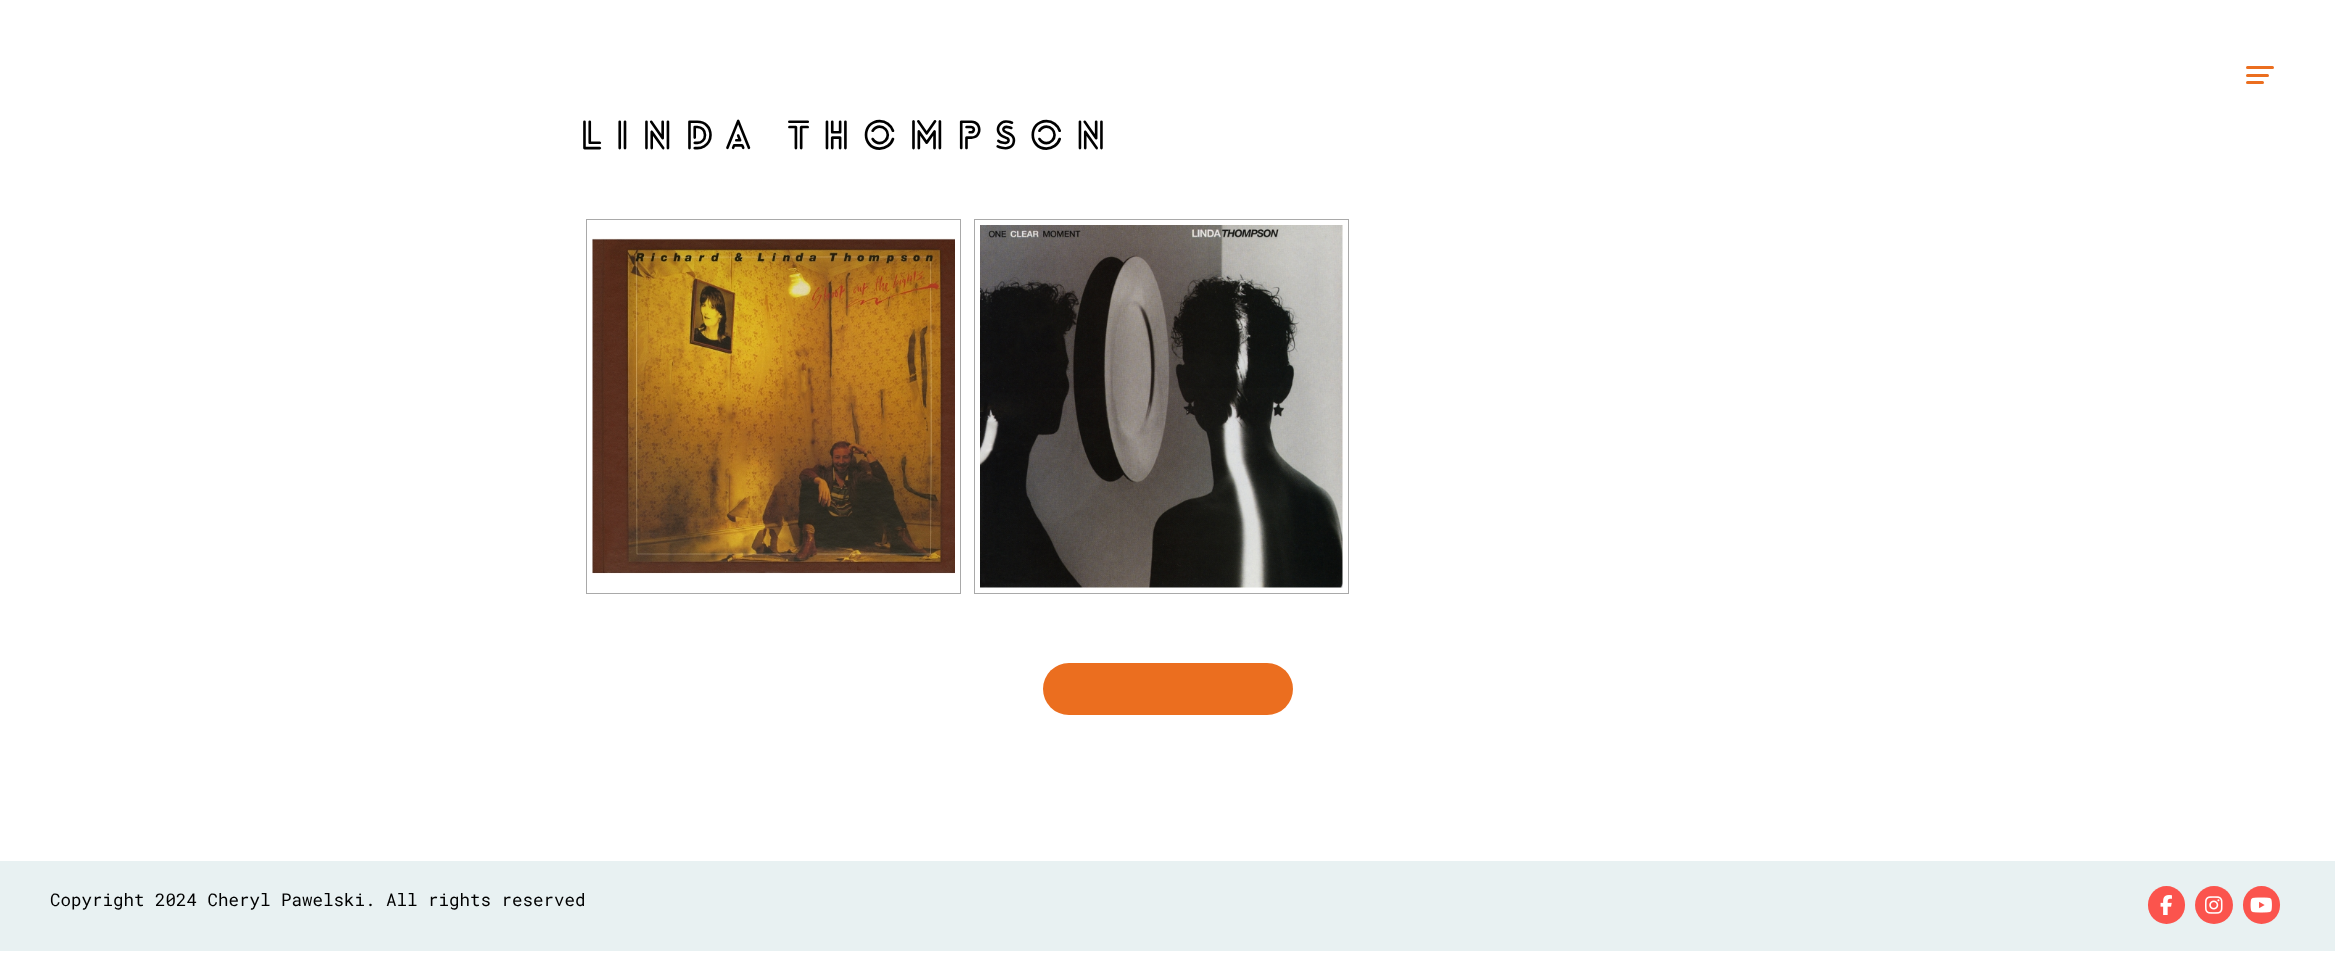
async function draw(canvas) {
	canvas.width = 2335;
	canvas.height = 957;
	const c = canvas.getContext('2d');
	c.miterLimit = 4;
	c.fontKerning = 'normal';
	async function loadImage(src) {
		const img = new Image();
		img.src = src;
		await img.decode();
		return img;
	}

	c.fillStyle = '#fff';
	c.fillRect(0, 0, 2335, 957);
	c.fillStyle = '#eb6e1f';
	c.beginPath();
	c.roundRect(2246, 66, 28, 3, 1.5);
	c.fill();
	c.beginPath();
	c.roundRect(2246, 74, 23, 3, 1.5);
	c.fill();
	c.beginPath();
	c.roundRect(2246, 81, 18, 3, 1.5);
	c.fill();
	c.letterSpacing = '12.5px';
	c.font = 'bold 39.4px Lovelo';
	c.fillStyle = '#000';
	c.fillText('LINDA THOMPSON', 580, 149);
	c.strokeStyle = '#a9a9a9';
	c.strokeRect(586.5, 219.5, 374, 374);
	c.drawImage(await loadImage('img1.png'), 592, 238, 363, 336);
	c.strokeRect(974.5, 219.5, 374, 374);
	c.drawImage(await loadImage('img2.png'), 980, 225, 363, 363);
	c.fillStyle = '#eb6e1f';
	c.beginPath();
	c.roundRect(1043, 663, 250, 52, 26);
	c.fill();
	c.fillStyle = '#e8f1f2';
	c.fillRect(0, 861, 2335, 90);
	c.letterSpacing = '0px';
	c.font = '17.5px Roboto Mono';
	c.fillStyle = '#000';
	c.fillText('Copyright 2024 Cheryl Pawelski. All rights reserved', 50, 906);
	c.fillStyle = '#fb544d';
	c.beginPath();
	c.roundRect(2148, 886, 37, 38, 18.5);
	c.fill();
	c.drawImage(await loadImage('img3.png'), 2160, 895, 12, 20);
	c.beginPath();
	c.arc(2214, 905, 19, 0, 2 * Math.PI);
	c.fill();
	c.drawImage(await loadImage('img4.png'), 2205, 896, 18, 18);
	c.beginPath();
	c.roundRect(2243, 886, 37, 38, 18.5);
	c.fill();
	c.drawImage(await loadImage('img5.png'), 2250, 897, 22, 16);
}

draw(document.querySelector('canvas'));
